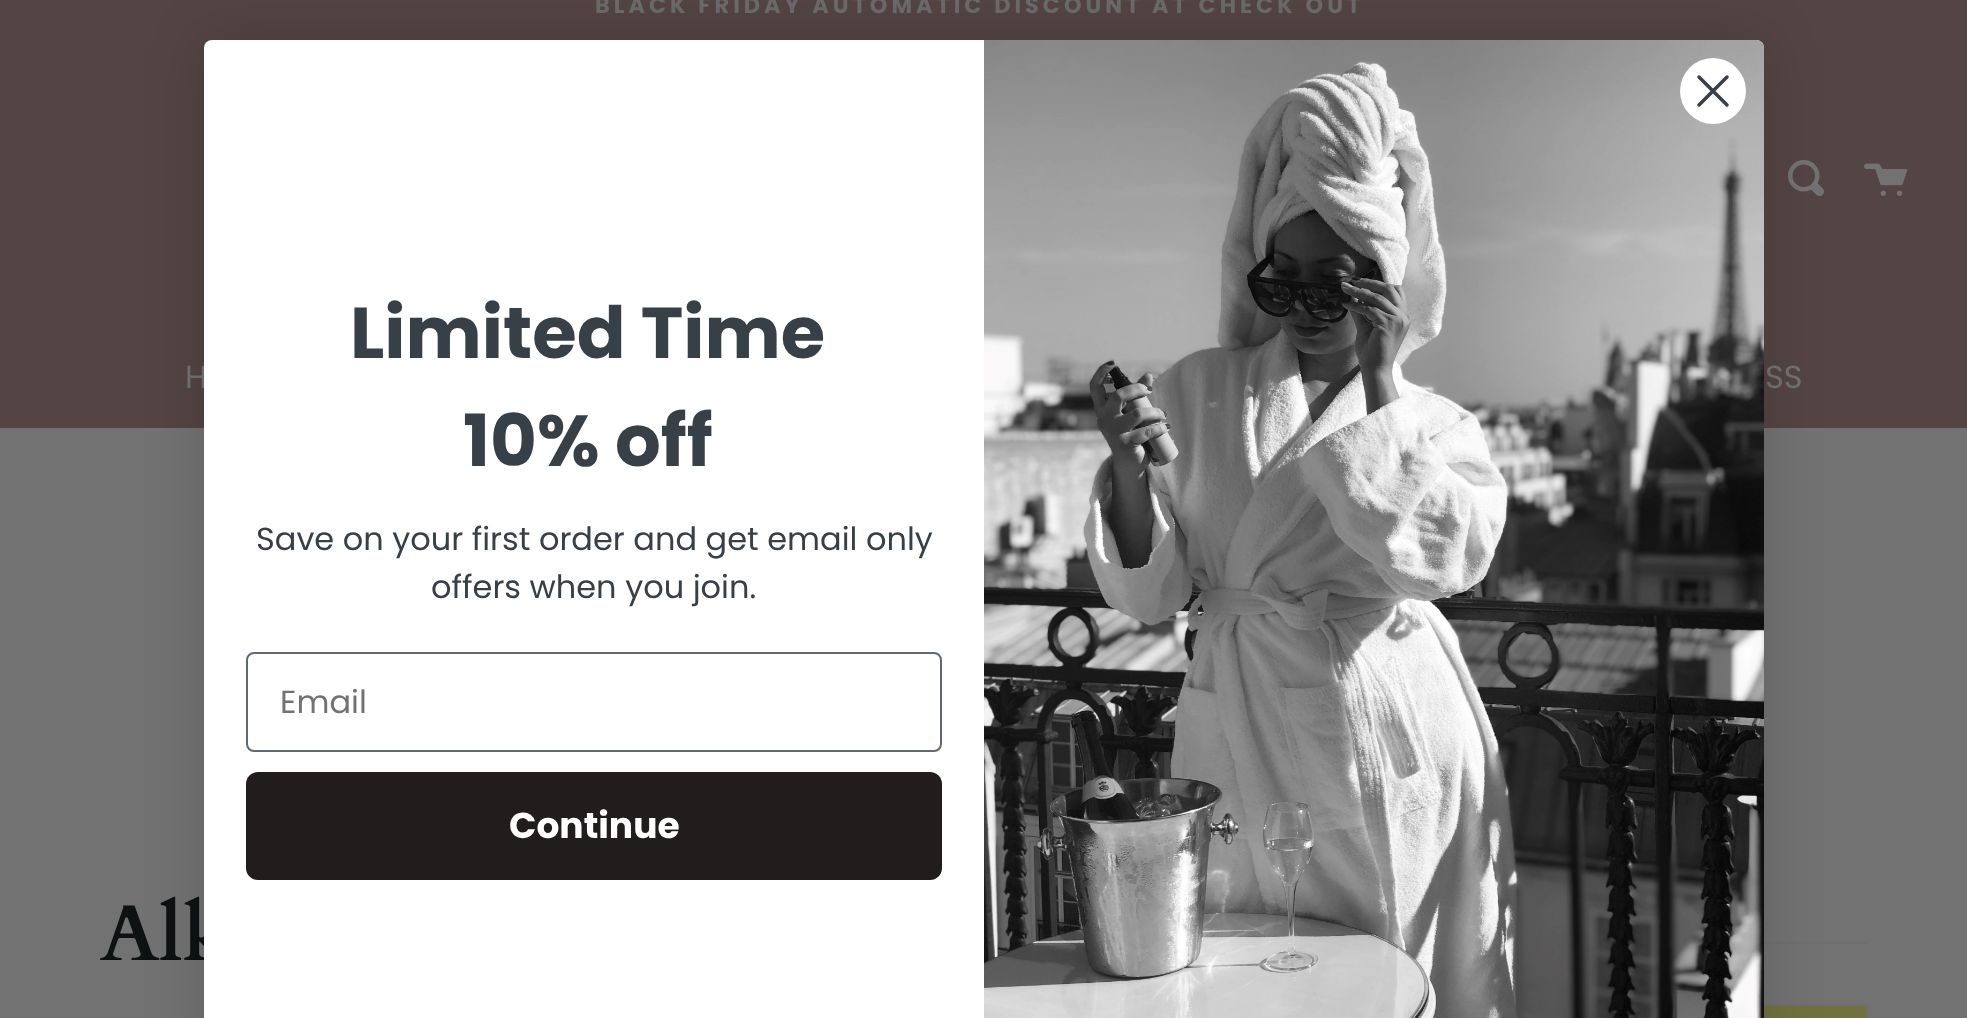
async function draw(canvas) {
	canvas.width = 1967;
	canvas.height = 1018;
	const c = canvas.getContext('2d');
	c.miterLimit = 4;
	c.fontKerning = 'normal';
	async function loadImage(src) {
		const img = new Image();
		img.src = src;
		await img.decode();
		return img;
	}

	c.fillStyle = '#727272';
	c.fillRect(0, 0, 1967, 1018);
	c.fillStyle = '#544444';
	c.fillRect(0, 0, 1967, 34);
	c.letterSpacing = '4px';
	c.font = 'bold 22.4px Poppins';
	c.fillStyle = '#6b6b6b';
	c.fillText('BLACK FRIDAY AUTOMATIC DISCOUNT AT CHECK OUT', 595, 13);
	c.fillStyle = '#544444';
	c.fillRect(0, 34, 1967, 394);
	c.drawImage(await loadImage('img1.png'), 1788, 160, 37, 37);
	c.drawImage(await loadImage('img2.png'), 1864, 163, 44, 33);
	c.letterSpacing = '0px';
	c.font = '32px Poppins';
	c.fillStyle = '#727272';
	c.fillText('H', 185, 388);
	c.fillText('SS', 1765, 388);
	c.font = 'bold 79px Cardo';
	c.fillStyle = '#0e1212';
	c.fillText('Alk', 100, 960);
	c.fillStyle = '#6f6f6f';
	c.fillRect(1764, 942, 104, 2);
	c.strokeStyle = '#6f6f6f';
	c.lineWidth = 2;
	c.strokeRect(1347, 1005, 520, 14);
	c.fillStyle = '#71713f';
	c.fillRect(1764, 1006, 102, 12);
	c.fillStyle = '#00000026';
	c.filter = 'blur(30px)';
	c.beginPath();
	c.roundRect(204, 40, 1560, 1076, 8);
	c.fill();
	c.filter = 'none';
	c.fillStyle = '#fff';
	c.beginPath();
	c.roundRect(204, 40, 1560, 978, [8, 8, 0, 0]);
	c.fill();
	c.drawImage(await loadImage('img3.png'), 984, 40, 780, 978);
	c.beginPath();
	c.arc(1713, 91, 33, 0, 2 * Math.PI);
	c.fill();
	c.beginPath();
	c.moveTo(1699, 77);
	c.lineTo(1727, 105);
	c.moveTo(1699, 105);
	c.lineTo(1727, 77);
	c.closePath();
	c.strokeStyle = '#373f47';
	c.lineWidth = 3.5;
	c.lineCap = 'round';
	c.lineJoin = 'round';
	c.stroke();
	c.font = 'bold 72px Poppins';
	c.fillStyle = '#373f47';
	c.fillText('Limited Time', 350, 358);
	c.fillText('10% off', 463, 466);
	c.font = '32px Poppins';
	c.fillText('Save on your first order and get email only', 256, 550);
	c.fillText('offers when you join.', 431, 598);
	c.beginPath();
	c.roundRect(247, 653, 694, 98, 7);
	c.strokeStyle = '#606a72';
	c.lineWidth = 2;
	c.lineJoin = 'miter';
	c.stroke();
	c.fillStyle = '#727272';
	c.fillText('Email', 280, 713);
	c.fillStyle = '#211d1c';
	c.beginPath();
	c.roundRect(246, 772, 696, 108, 12);
	c.fill();
	c.font = 'bold 36px Poppins';
	c.fillStyle = '#fff';
	c.fillText('Continue', 509, 838);
}

draw(document.querySelector('canvas'));
